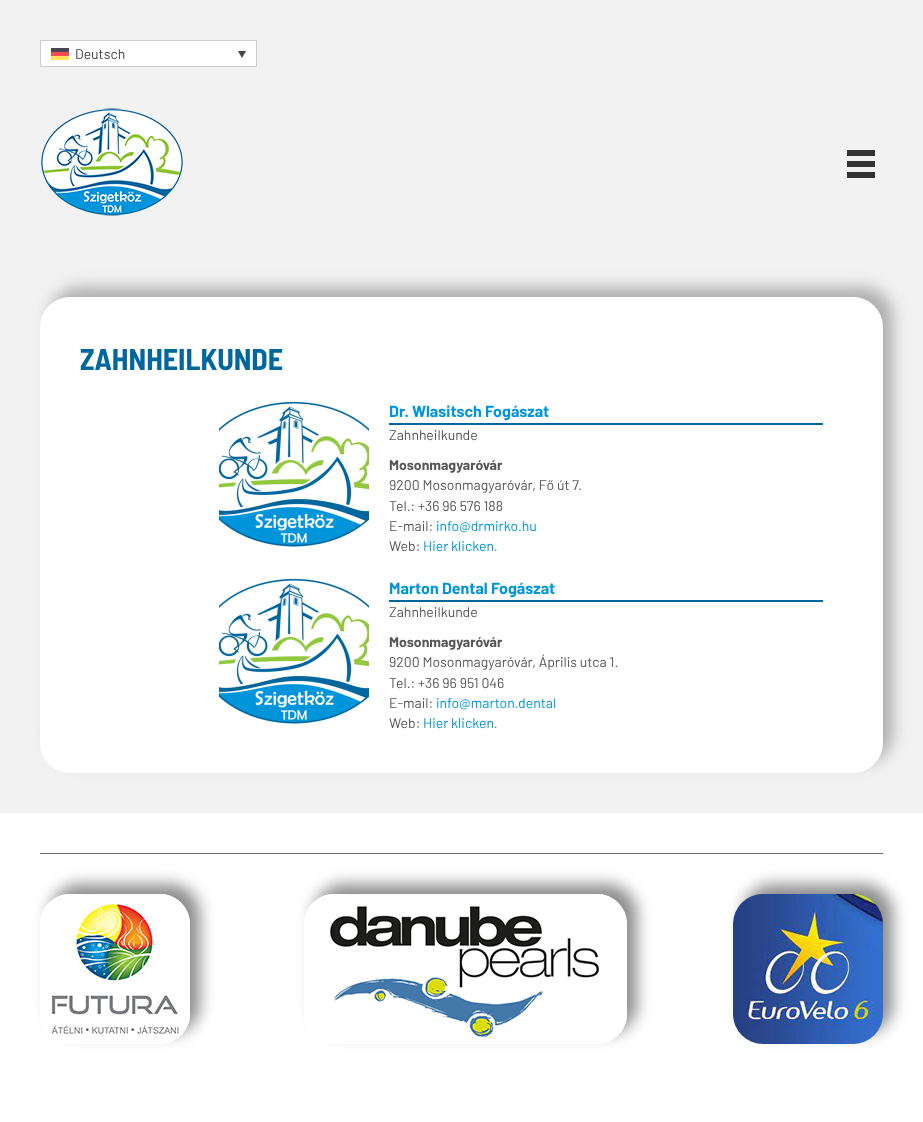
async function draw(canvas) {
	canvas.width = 923;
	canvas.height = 1122;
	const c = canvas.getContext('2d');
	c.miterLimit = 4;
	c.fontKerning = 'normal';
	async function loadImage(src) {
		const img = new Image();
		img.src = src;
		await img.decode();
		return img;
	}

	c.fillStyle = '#f2f2f2';
	c.fillRect(0, 0, 923, 1122);
	c.fillStyle = '#fff';
	c.beginPath();
	c.rect(40.5, 40.5, 216, 26);
	c.fill();
	c.strokeStyle = '#cdcdcd';
	c.stroke();
	c.fillStyle = '#464655';
	c.fillRect(51, 48, 18, 4);
	c.font = '14px Barlow';
	c.fillStyle = '#444';
	c.fillText('Deutsch', 75, 59);
	c.beginPath();
	c.moveTo(238, 51);
	c.lineTo(246, 51);
	c.lineTo(242, 58);
	c.closePath();
	c.fill();
	c.fillStyle = '#ff4b55';
	c.fillRect(51, 52, 18, 4);
	c.fillStyle = '#ffe15a';
	c.fillRect(51, 56, 18, 4);
	c.drawImage(await loadImage('img1.png'), 41, 108, 142, 108);
	for (const [x, y, w, h, color] of [
		[847, 150, 28, 6, '#333'],
		[847, 161, 28, 6, '#333'],
		[847, 172, 28, 6, '#333'],
	]) {
		c.fillStyle = color;
		c.fillRect(x, y, w, h);
	}
	c.fillStyle = '#afafaf';
	c.filter = 'blur(7.5px)';
	c.beginPath();
	c.roundRect(50, 287, 843, 476, 30);
	c.fill();
	c.filter = 'none';
	c.fillStyle = '#fff';
	c.beginPath();
	c.roundRect(40, 297, 843, 476, 30);
	c.fill();
	c.font = 'bold 30px Barlow Semi Condensed';
	c.fillStyle = '#00679e';
	c.fillText('ZAHNHEILKUNDE', 80, 370);
	c.drawImage(await loadImage('img2.png'), 219, 401, 150, 146);
	c.fillRect(389, 423, 434, 2);
	c.font = 'bold 16px Barlow';
	c.fillStyle = '#0095da';
	c.fillText('Dr. Wlasitsch Fogászat', 389, 417);
	c.font = '14px Barlow';
	c.fillStyle = '#565656';
	c.fillText('Zahnheilkunde', 389, 440);
	c.font = 'bold 14px Barlow';
	c.fillText('Mosonmagyaróvár', 389, 470);
	c.font = '14px Barlow';
	for (const [text, x, y] of [
		['9200 Mosonmagyaróvár, Fő út 7.', 389, 490],
		['Tel.: +36 96 576 188', 389, 511],
		['E-mail:', 389, 531],
	]) {
		c.fillText(text, x, y);
	}
	c.fillStyle = '#0095da';
	c.fillText('info@drmirko.hu', 436, 531);
	c.fillStyle = '#565656';
	c.fillText('Web:', 389, 551);
	c.fillStyle = '#0095da';
	c.fillText('Hier klicken.', 423, 551);
	c.drawImage(await loadImage('img2.png'), 219, 578, 150, 146);
	c.fillStyle = '#00679e';
	c.fillRect(389, 600, 434, 2);
	c.font = 'bold 16px Barlow';
	c.fillStyle = '#0095da';
	c.fillText('Marton Dental Fogászat', 389, 594);
	c.font = '14px Barlow';
	c.fillStyle = '#565656';
	c.fillText('Zahnheilkunde', 389, 617);
	c.font = 'bold 14px Barlow';
	c.fillText('Mosonmagyaróvár', 389, 647);
	c.font = '14px Barlow';
	for (const [text, x, y] of [
		['9200 Mosonmagyaróvár, Április utca 1.', 389, 667],
		['Tel.: +36 96 951 046', 389, 688],
		['E-mail:', 389, 708],
	]) {
		c.fillText(text, x, y);
	}
	c.fillStyle = '#0095da';
	c.fillText('info@marton.dental', 436, 708);
	c.fillStyle = '#565656';
	c.fillText('Web:', 389, 728);
	c.fillStyle = '#0095da';
	c.fillText('Hier klicken.', 423, 728);
	c.fillStyle = '#fff';
	c.fillRect(0, 813, 923, 309);
	c.fillStyle = '#6b6b6b';
	c.fillRect(40, 853, 843, 1);
	c.save();
	c.beginPath();
	c.moveTo(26, 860);
	c.lineTo(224, 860);
	c.lineTo(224, 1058);
	c.lineTo(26, 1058);
	c.closePath();
	c.moveTo(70, 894);
	c.lineTo(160, 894);
	c.bezierCurveTo(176.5, 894, 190, 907.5, 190, 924);
	c.lineTo(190, 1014);
	c.bezierCurveTo(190, 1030.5, 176.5, 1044, 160, 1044);
	c.lineTo(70, 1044);
	c.bezierCurveTo(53.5, 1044, 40, 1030.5, 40, 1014);
	c.lineTo(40, 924);
	c.bezierCurveTo(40, 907.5, 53.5, 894, 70, 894);
	c.closePath();
	c.clip('evenodd');
	c.fillStyle = '#8e8e8e';
	c.filter = 'blur(7.5px)';
	c.beginPath();
	c.roundRect(50, 884, 150, 150, 30);
	c.fill();
	c.filter = 'none';
	c.restore();
	c.drawImage(await loadImage('img3.png'), 45, 894, 145, 145);
	c.save();
	c.beginPath();
	c.moveTo(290, 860);
	c.lineTo(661, 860);
	c.lineTo(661, 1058);
	c.lineTo(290, 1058);
	c.closePath();
	c.moveTo(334, 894);
	c.lineTo(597, 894);
	c.bezierCurveTo(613.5, 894, 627, 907.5, 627, 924);
	c.lineTo(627, 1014);
	c.bezierCurveTo(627, 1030.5, 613.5, 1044, 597, 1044);
	c.lineTo(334, 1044);
	c.bezierCurveTo(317.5, 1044, 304, 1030.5, 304, 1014);
	c.lineTo(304, 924);
	c.bezierCurveTo(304, 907.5, 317.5, 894, 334, 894);
	c.closePath();
	c.clip('evenodd');
	c.fillStyle = '#8e8e8e';
	c.filter = 'blur(7.5px)';
	c.beginPath();
	c.roundRect(314, 884, 323, 150, 30);
	c.fill();
	c.filter = 'none';
	c.restore();
	c.drawImage(await loadImage('img4.png'), 309, 894, 318, 145);
	c.fillStyle = '#8e8e8e';
	c.filter = 'blur(7.5px)';
	c.beginPath();
	c.roundRect(743, 884, 150, 150, 30);
	c.fill();
	c.filter = 'none';
	c.drawImage(await loadImage('img5.png'), 733, 894, 150, 150);
}

draw(document.querySelector('canvas'));
